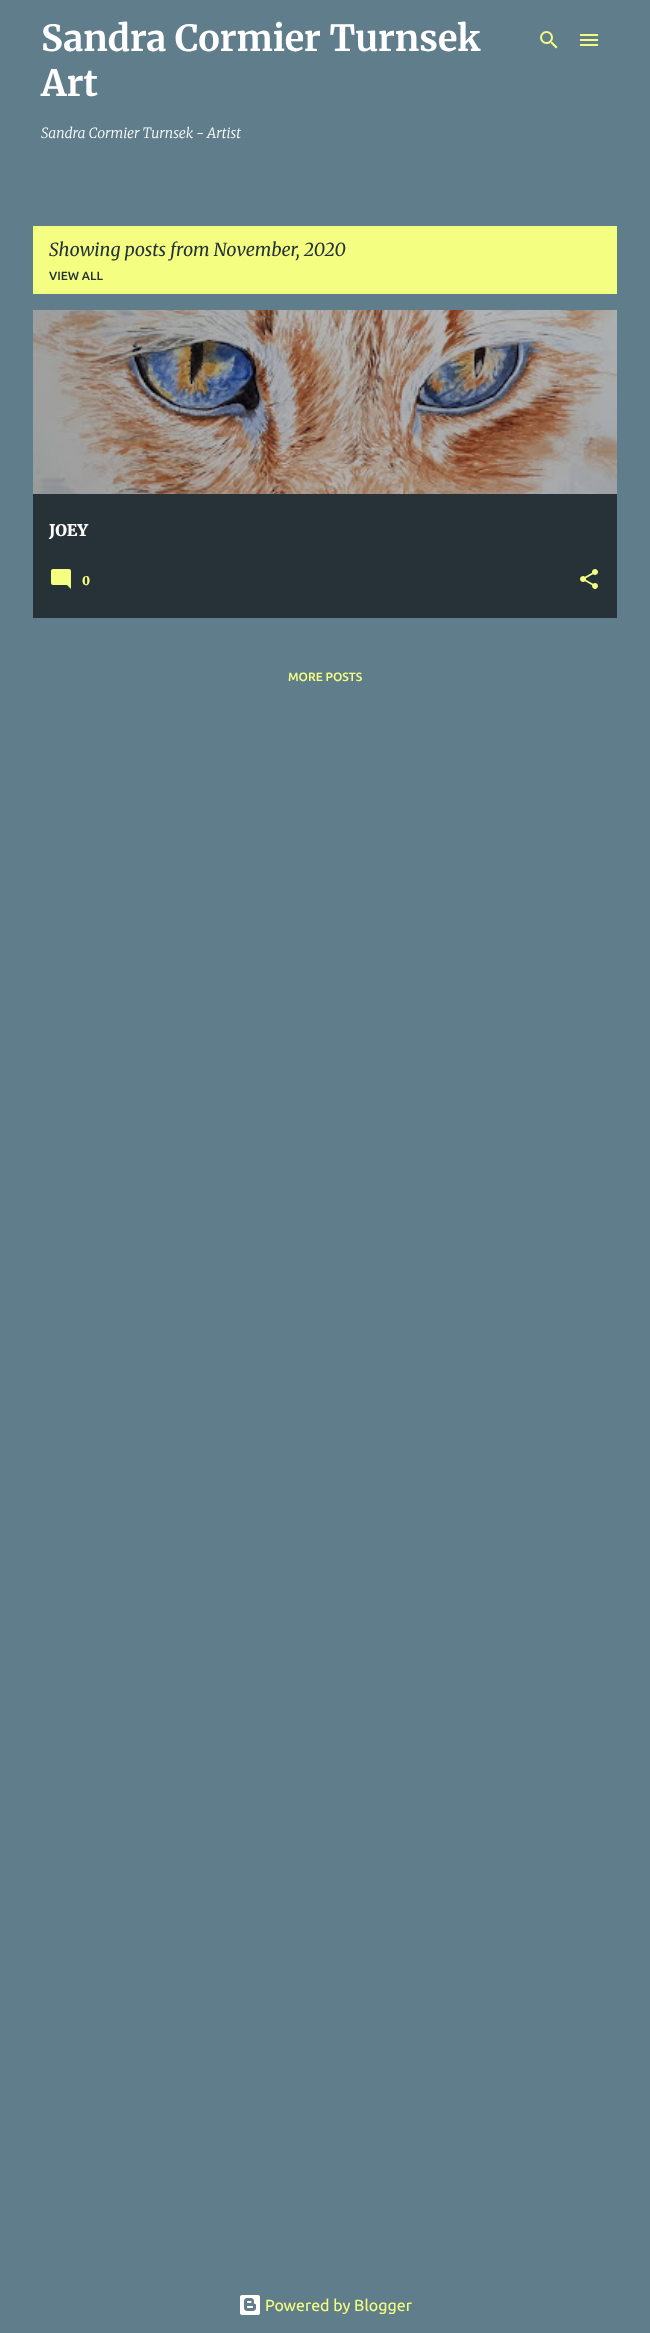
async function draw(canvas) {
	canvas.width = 650;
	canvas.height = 2333;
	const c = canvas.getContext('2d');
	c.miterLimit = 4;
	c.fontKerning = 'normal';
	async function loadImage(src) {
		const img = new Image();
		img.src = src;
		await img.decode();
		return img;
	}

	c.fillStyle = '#607d8b';
	c.fillRect(0, 0, 650, 2333);
	c.font = 'bold 36px Merriweather';
	c.fillStyle = '#fff';
	c.fillText('Sandra Cormier Turnsek', 41, 51);
	c.fillText('Art', 41, 96);
	c.font = 'italic 300 14px Merriweather';
	c.fillText('Sandra Cormier Turnsek - Artist', 41, 138);
	c.drawImage(await loadImage('img1.png'), 540, 31, 18, 18);
	c.drawImage(await loadImage('img2.png'), 580, 34, 18, 12);
	c.fillStyle = '#f4ff81';
	c.fillRect(33, 226, 584, 68);
	c.font = 'italic 18px Merriweather';
	c.fillStyle = '#263238';
	c.fillText('Showing posts from November, 2020', 49, 256);
	c.font = '500 12px Ubuntu';
	c.fillText('VIEW ALL', 49, 280);
	c.fillRect(33, 494, 584, 124);
	c.drawImage(await loadImage('img3.png'), 33, 310, 584, 184);
	c.font = '900 16px Merriweather';
	c.fillStyle = '#fff';
	c.fillText('JOEY', 49, 536);
	c.drawImage(await loadImage('img4.png'), 51, 569, 20, 20);
	c.font = '900 12px Merriweather';
	c.fillStyle = '#f4ff81';
	c.fillText('0', 82, 585);
	c.drawImage(await loadImage('img5.png'), 580, 569, 18, 20);
	c.font = '500 12px Ubuntu';
	c.fillText('MORE POSTS', 288, 681);
	c.drawImage(await loadImage('img6.png'), 240, 2295, 20, 20);
	c.font = '16px Ubuntu';
	c.fillText('Powered by Blogger', 265, 2311);
}

draw(document.querySelector('canvas'));
